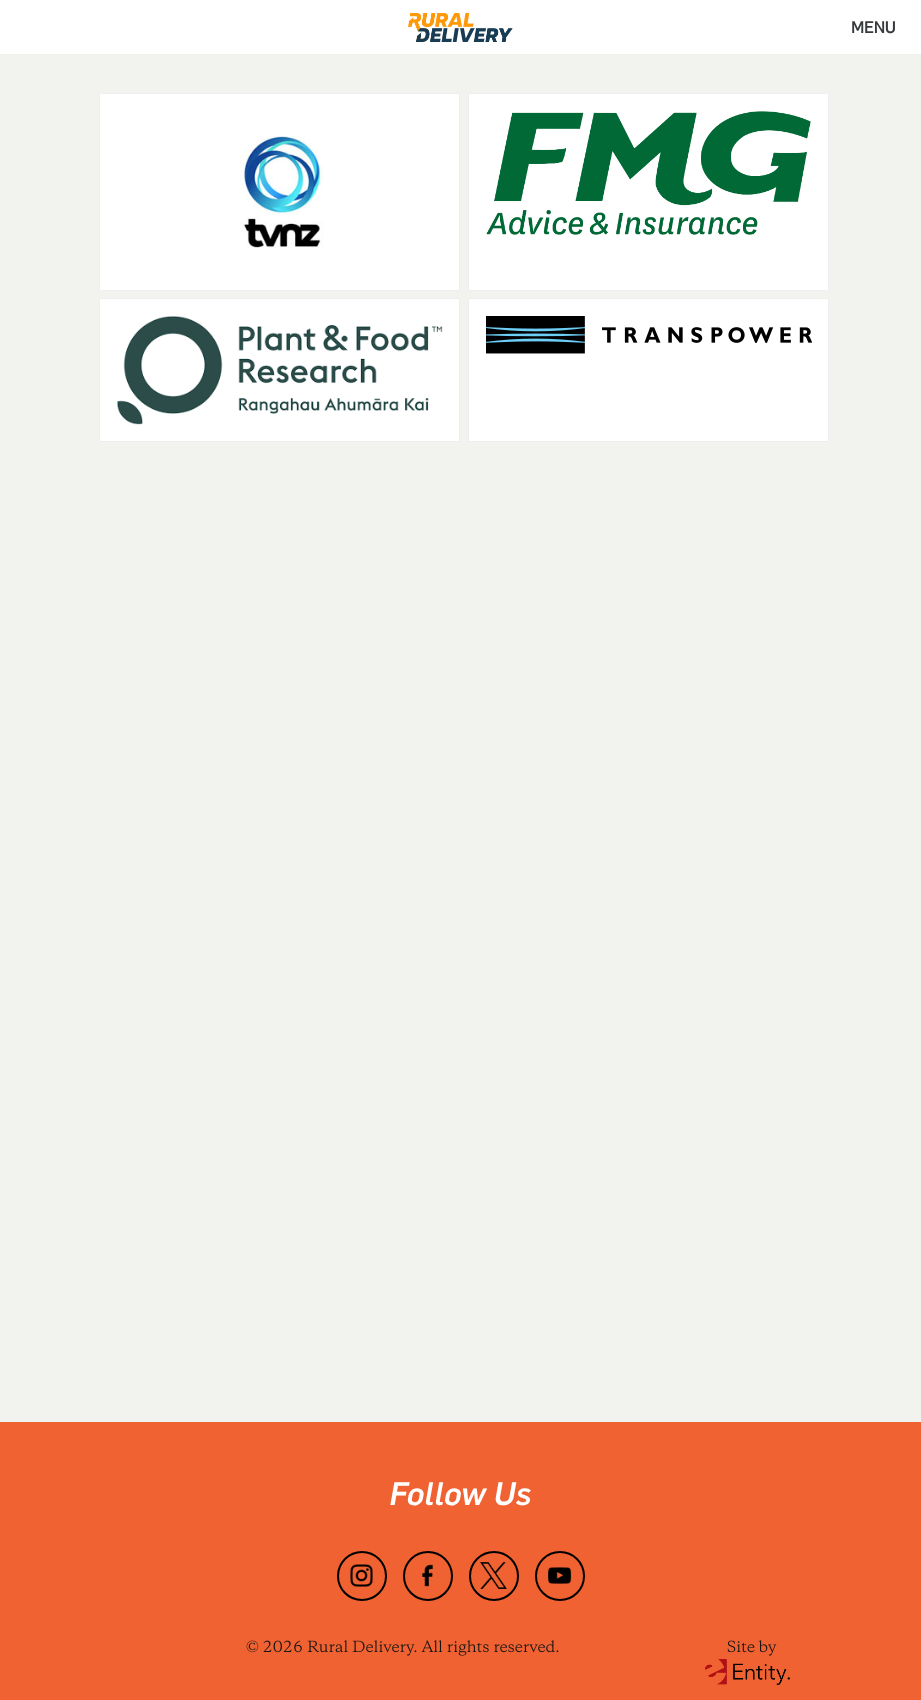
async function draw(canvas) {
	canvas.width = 921;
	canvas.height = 1700;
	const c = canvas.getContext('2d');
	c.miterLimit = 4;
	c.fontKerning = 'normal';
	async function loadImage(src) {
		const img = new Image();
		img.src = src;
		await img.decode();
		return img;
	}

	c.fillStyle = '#f2f3ef';
	c.fillRect(0, 0, 921, 1700);
	c.fillStyle = '#fff';
	c.fillRect(0, 0, 921, 54);
	c.drawImage(await loadImage('img1.png'), 408, 13, 105, 29);
	c.font = 'bold 16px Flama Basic';
	c.fillStyle = '#373a3c';
	c.fillText('MENU', 851, 33);
	c.fillStyle = '#fff';
	c.beginPath();
	c.rect(99.5, 93.5, 360, 197);
	c.fill();
	c.strokeStyle = '#eceeef';
	c.stroke();
	c.drawImage(await loadImage('img2.png'), 240, 136, 84, 112);
	c.beginPath();
	c.rect(468.5, 93.5, 360, 197);
	c.fill();
	c.stroke();
	c.drawImage(await loadImage('img3.png'), 486, 111, 325, 124);
	c.beginPath();
	c.rect(99.5, 298.5, 360, 143);
	c.fill();
	c.stroke();
	c.drawImage(await loadImage('img4.png'), 117, 316, 326, 109);
	c.beginPath();
	c.rect(468.5, 298.5, 360, 143);
	c.fill();
	c.stroke();
	c.drawImage(await loadImage('img5.png'), 486, 316, 326, 38);
	c.fillStyle = '#f06231';
	c.fillRect(0, 1422, 921, 278);
	c.font = '500 32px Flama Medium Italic';
	c.fillStyle = '#fff';
	c.fillText('Follow Us', 389, 1505);
	c.drawImage(await loadImage('img6.png'), 350, 1564, 23, 23);
	c.beginPath();
	c.arc(362, 1576, 24, 0, 2 * Math.PI);
	c.strokeStyle = '#000';
	c.lineWidth = 2;
	c.stroke();
	c.drawImage(await loadImage('img7.png'), 422, 1564, 11, 23);
	c.beginPath();
	c.arc(428, 1576, 24, 0, 2 * Math.PI);
	c.stroke();
	c.drawImage(await loadImage('img8.png'), 480, 1562, 27, 27);
	c.beginPath();
	c.arc(494, 1576, 24, 0, 2 * Math.PI);
	c.stroke();
	c.drawImage(await loadImage('img9.png'), 548, 1567, 24, 17);
	c.beginPath();
	c.arc(560, 1576, 24, 0, 2 * Math.PI);
	c.stroke();
	c.drawImage(await loadImage('img10.png'), 246, 1640, 56, 13);
	c.drawImage(await loadImage('img11.png'), 307, 1640, 252, 16);
	c.drawImage(await loadImage('img12.png'), 727, 1640, 50, 16);
	c.drawImage(await loadImage('img13.png'), 705, 1659, 85, 26);
}

draw(document.querySelector('canvas'));
